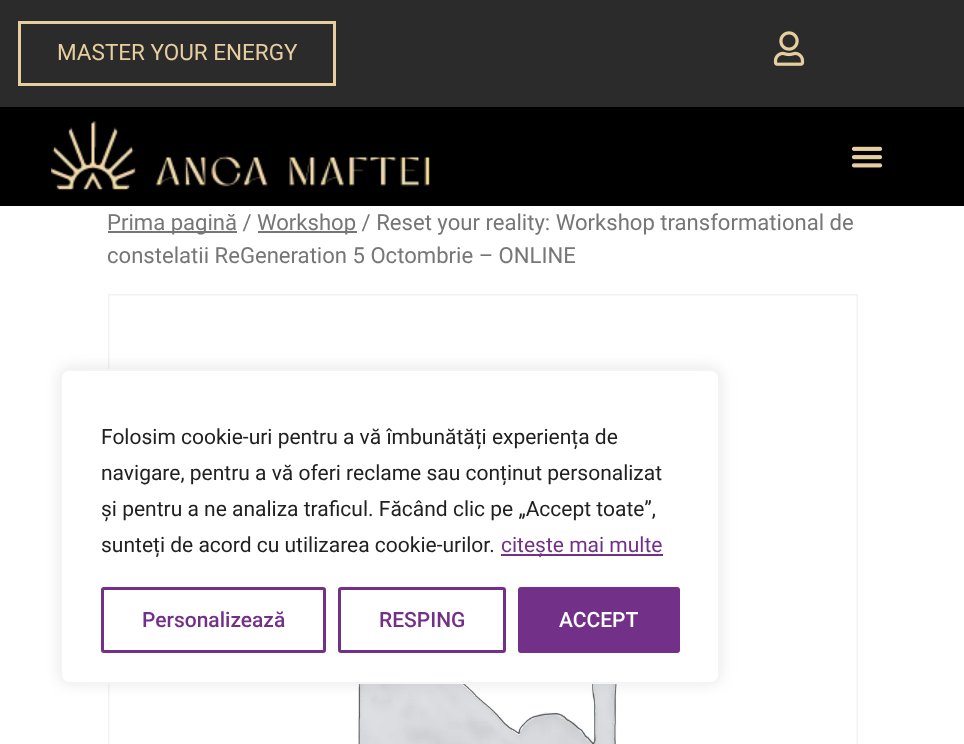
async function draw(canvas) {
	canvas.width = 964;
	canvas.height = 744;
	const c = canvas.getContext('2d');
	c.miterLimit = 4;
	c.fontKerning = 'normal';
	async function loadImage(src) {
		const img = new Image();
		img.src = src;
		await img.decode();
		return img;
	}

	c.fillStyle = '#fff';
	c.fillRect(0, 0, 964, 744);
	c.fillStyle = '#2b2b2b';
	c.fillRect(0, 0, 964, 107);
	c.strokeStyle = '#e7ce9f';
	c.lineWidth = 3;
	c.strokeRect(19.5, 22.5, 315, 62);
	c.font = '22.5px Roboto';
	c.fillStyle = '#e7ce9f';
	c.fillText('MASTER YOUR ENERGY', 57, 60);
	c.drawImage(await loadImage('img1.png'), 773, 31, 32, 35);
	c.fillStyle = '#000';
	c.fillRect(0, 107, 964, 99);
	c.drawImage(await loadImage('img2.png'), 51, 121, 379, 70);
	c.drawImage(await loadImage('img3.png'), 851, 146, 32, 22);
	c.fillStyle = '#767676';
	c.fillRect(108, 231, 129, 2);
	c.font = '22.1px Roboto';
	c.fillText('Prima pagină /', 107, 230);
	c.fillRect(258, 231, 99, 2);
	c.fillText('Workshop / Reset your reality: Workshop transformational de', 257, 230);
	c.fillText('constelatii ReGeneration 5 Octombrie – ONLINE', 107, 263);
	c.strokeStyle = '#f2f2f2';
	c.lineWidth = 2;
	c.strokeRect(109, 295, 748, 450);
	c.drawImage(await loadImage('img4.png'), 109, 295, 748, 449);
	c.fillStyle = '#acabab4d';
	c.filter = 'blur(7.5px)';
	c.beginPath();
	c.roundRect(60, 368, 660, 315, 9);
	c.fill();
	c.filter = 'none';
	c.fillStyle = '#fff';
	c.beginPath();
	c.roundRect(61, 370, 658, 313, 8);
	c.fill();
	c.strokeStyle = '#f4f4f4';
	c.stroke();
	c.font = '21px Roboto';
	c.fillStyle = '#212121';
	for (const [text, x, y] of [
		['Folosim cookie-uri pentru a vă îmbunătăți experiența de', 101, 444],
		['navigare, pentru a vă oferi reclame sau conținut personalizat', 101, 480],
		['și pentru a ne analiza traficul. Făcând clic pe „Accept toate”,', 101, 516],
		['sunteți de acord cu utilizarea cookie-urilor.', 101, 552],
	]) {
		c.fillText(text, x, y);
	}
	c.fillStyle = '#723089';
	c.fillRect(501, 554, 162, 2);
	c.fillText('citește mai multe', 501, 552);
	c.beginPath();
	c.roundRect(102.5, 588.5, 222, 63, 1.5);
	c.strokeStyle = '#723089';
	c.lineWidth = 3;
	c.stroke();
	c.font = '500 21px Roboto';
	c.fillText('Personalizează', 142, 627);
	c.beginPath();
	c.roundRect(339.5, 588.5, 165, 63, 1.5);
	c.stroke();
	c.fillText('RESPING', 379, 627);
	c.beginPath();
	c.roundRect(519.5, 588.5, 159, 63, 1.5);
	c.fill();
	c.stroke();
	c.fillStyle = '#fff';
	c.fillText('ACCEPT', 559, 627);
}

draw(document.querySelector('canvas'));
